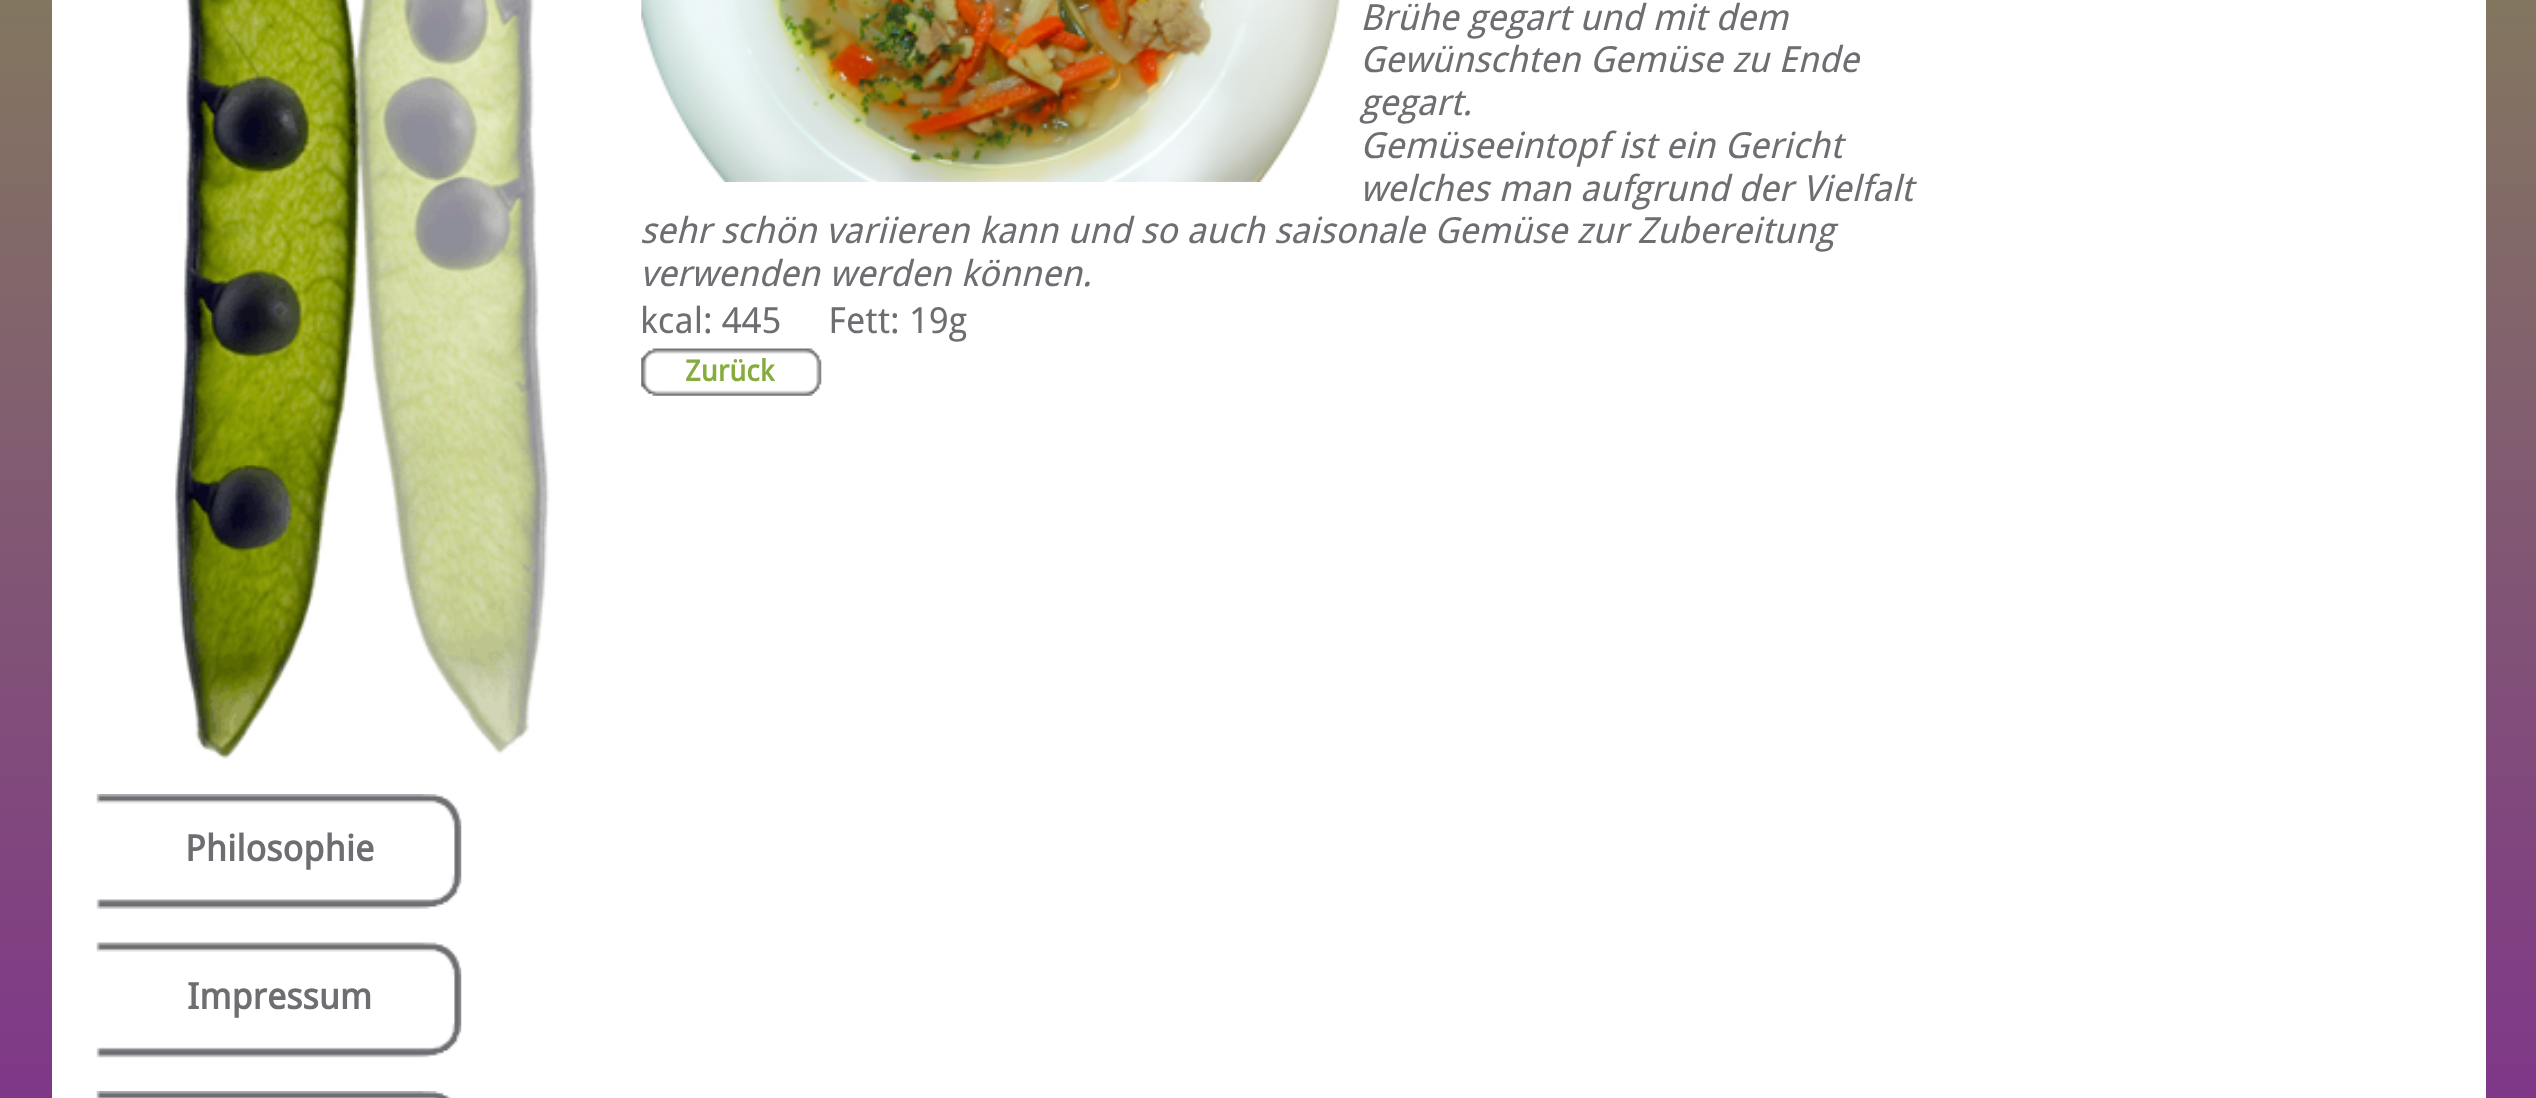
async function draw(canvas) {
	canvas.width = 2536;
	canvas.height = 1098;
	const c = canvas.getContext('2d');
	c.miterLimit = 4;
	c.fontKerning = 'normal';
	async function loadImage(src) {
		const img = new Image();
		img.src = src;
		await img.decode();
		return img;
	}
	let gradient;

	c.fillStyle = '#fff';
	c.fillRect(0, 0, 2536, 1098);
	gradient = c.createLinearGradient(1269, -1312, 1269, 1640);
	gradient.addColorStop(0, '#86c22f');
	gradient.addColorStop(1, '#7e189c');
	c.fillStyle = gradient;
	c.fillRect(0, 0, 2536, 1098);
	c.fillStyle = '#fff';
	c.fillRect(52, 0, 2434, 1098);
	c.drawImage(await loadImage('img1.png'), 641, 0, 700, 182);
	c.font = 'italic 36px Droid Sans';
	c.fillStyle = '#6d6e71';
	for (const [text, x, y] of [
		['Brühe gegart und mit dem', 1360, 30],
		['Gewünschten Gemüse zu Ende', 1360, 72],
		['gegart.', 1360, 115],
		['Gemüseeintopf ist ein Gericht', 1360, 158],
		['welches man aufgrund der Vielfalt', 1360, 201],
		['sehr schön variieren kann und so auch saisonale Gemüse zur Zubereitung', 640, 243],
		['verwenden werden können.', 640, 286],
	]) {
		c.fillText(text, x, y);
	}
	c.font = '36px Droid Sans';
	c.fillText('kcal: 445     Fett: 19g', 640, 333);
	c.drawImage(await loadImage('img2.png'), 641, 348, 181, 48);
	c.font = 'bold 29px Droid Sans';
	c.fillStyle = '#85ac3d';
	c.fillText('Zurück', 685, 381);
	c.drawImage(await loadImage('img3.png'), 174, 0, 376, 759);
	c.drawImage(await loadImage('img4.png'), 96, 794, 366, 115);
	c.font = 'bold 36px Droid Sans';
	c.fillStyle = '#6d6e71';
	c.fillText('Philosophie', 185, 861);
	c.drawImage(await loadImage('img5.png'), 96, 942, 366, 116);
	c.fillText('Impressum', 187, 1009);
	c.drawImage(await loadImage('img6.png'), 96, 1091, 355, 7);
}

draw(document.querySelector('canvas'));
